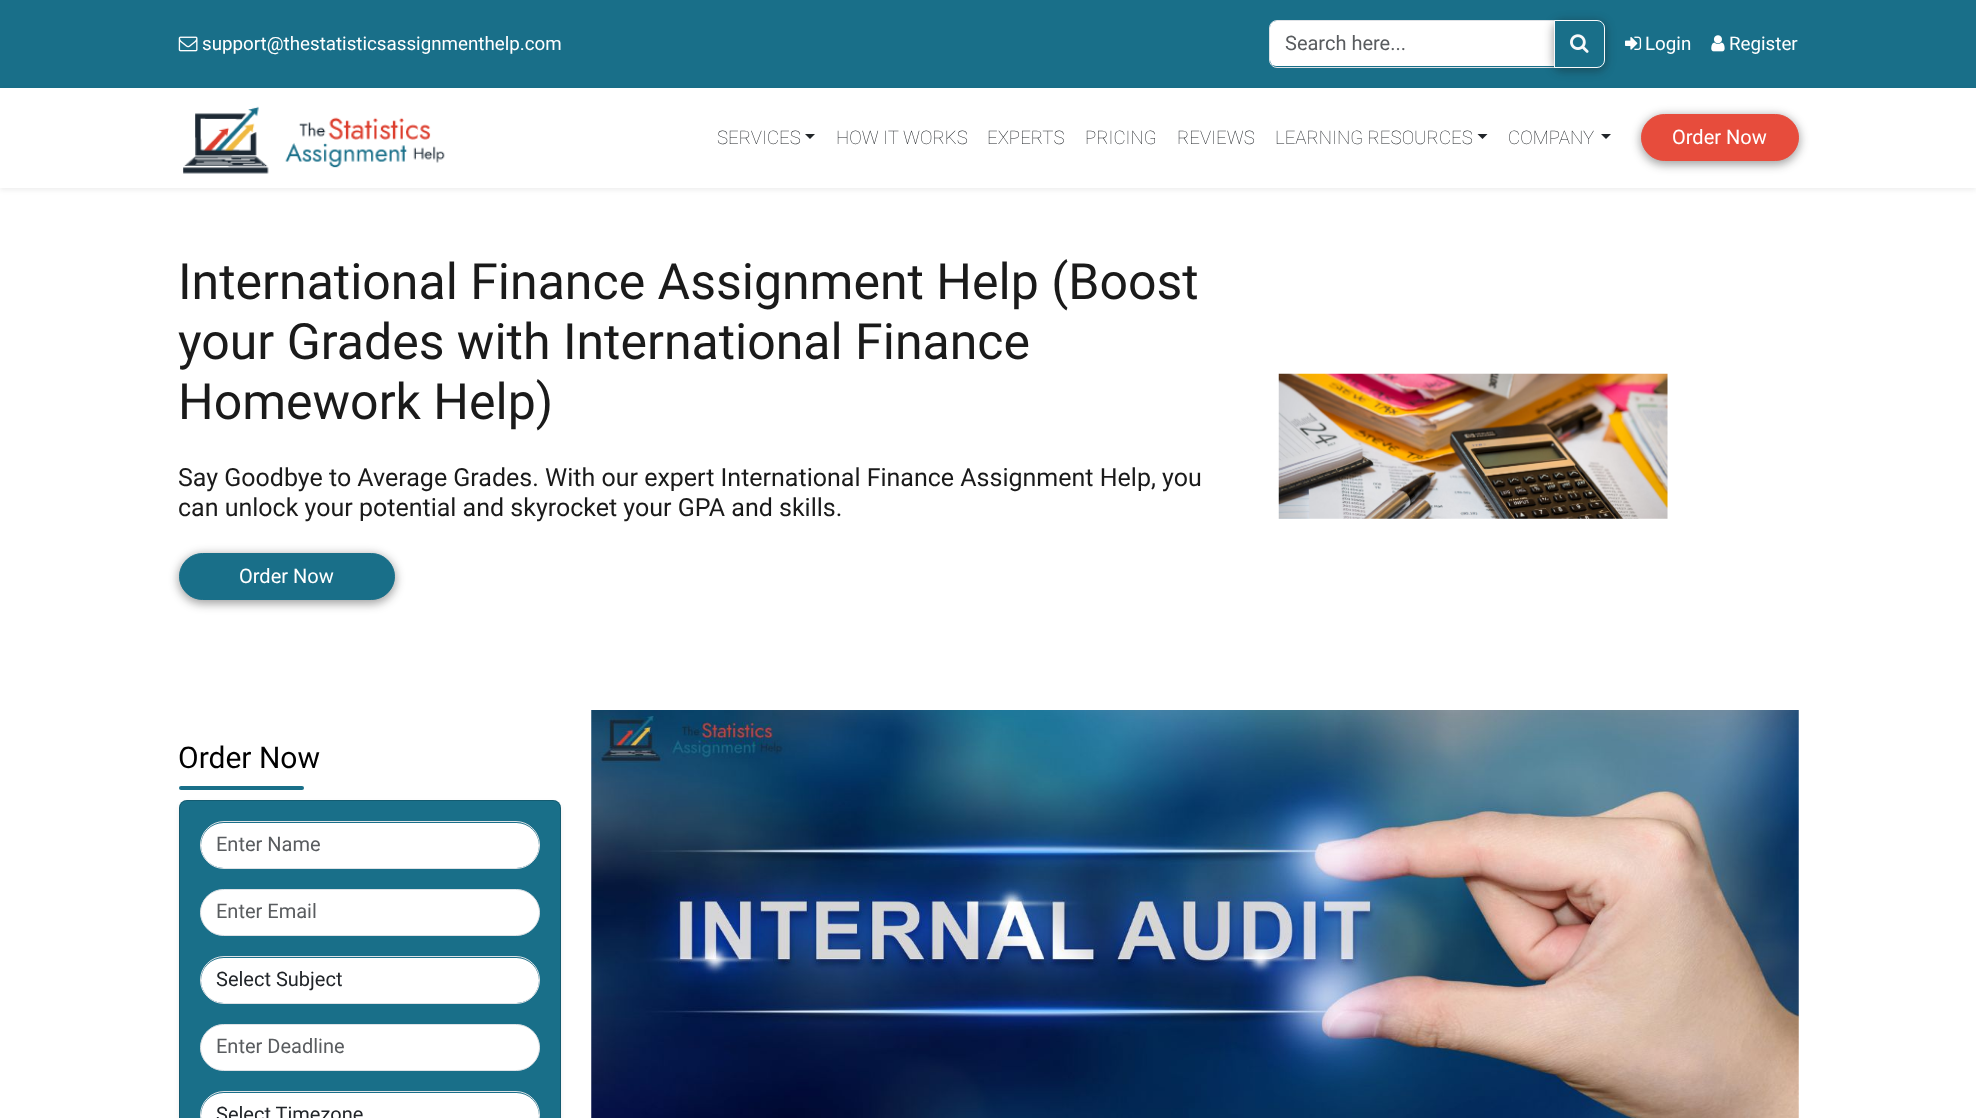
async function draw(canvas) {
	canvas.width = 1976;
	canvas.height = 1118;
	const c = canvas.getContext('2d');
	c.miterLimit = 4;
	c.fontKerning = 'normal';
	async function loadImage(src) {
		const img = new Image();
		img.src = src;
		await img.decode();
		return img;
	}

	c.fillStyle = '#fff';
	c.fillRect(0, 0, 1976, 1118);
	c.fillStyle = '#196f89';
	c.fillRect(0, 0, 1976, 88);
	c.drawImage(await loadImage('img1.png'), 178, 36, 20, 16);
	c.font = '18.75px Roboto';
	c.fillStyle = '#fff';
	c.fillText('support@thestatisticsassignmenthelp.com', 202, 50);
	c.beginPath();
	c.roundRect(1270, 21, 284, 45, [6, 0, 0, 6]);
	c.fill();
	c.beginPath();
	c.roundRect(1269.5, 20.5, 285, 47, [7.5, 0, 0, 7.5]);
	c.strokeStyle = '#dee2e6';
	c.stroke();
	c.font = '20px Roboto';
	c.fillStyle = '#595c5f';
	c.fillText('Search here...', 1285, 50);
	c.save();
	c.beginPath();
	c.moveTo(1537, 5);
	c.lineTo(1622, 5);
	c.lineTo(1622, 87);
	c.lineTo(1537, 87);
	c.closePath();
	c.moveTo(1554, 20);
	c.lineTo(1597, 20);
	c.bezierCurveTo(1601.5, 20, 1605, 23.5, 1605, 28);
	c.lineTo(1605, 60);
	c.bezierCurveTo(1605, 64.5, 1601.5, 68, 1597, 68);
	c.lineTo(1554, 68);
	c.closePath();
	c.clip('evenodd');
	c.fillStyle = '#16161663';
	c.filter = 'blur(5px)';
	c.beginPath();
	c.roundRect(1553, 21, 53, 50, 9);
	c.fill();
	c.filter = 'none';
	c.restore();
	c.beginPath();
	c.roundRect(1554.5, 20.5, 50, 47, [0, 7.5, 7.5, 0]);
	c.strokeStyle = '#f8f9fa';
	c.stroke();
	c.drawImage(await loadImage('img2.png'), 1570, 34, 19, 19);
	c.drawImage(await loadImage('img3.png'), 1625, 36, 17, 14);
	c.font = '18.75px Roboto';
	c.fillStyle = '#fff';
	c.fillText('Login', 1645, 50);
	c.drawImage(await loadImage('img4.png'), 1711, 35, 14, 17);
	c.fillText('Register', 1729, 50);
	c.fillStyle = '#00000012';
	c.filter = 'blur(2.5px)';
	c.beginPath();
	c.rect(0, 90, 1976, 100);
	c.fill();
	c.filter = 'none';
	c.fillStyle = '#fff';
	c.fillRect(0, 88, 1976, 100);
	c.drawImage(await loadImage('img5.png'), 183, 106, 262, 68);
	c.font = '100 18.75px Roboto';
	c.fillStyle = '#212529';
	c.fillText('SERVICES', 717, 144);
	c.beginPath();
	c.moveTo(805, 134);
	c.lineTo(815, 134);
	c.lineTo(810, 139);
	c.closePath();
	c.fill();
	for (const [text, x, y] of [
		['HOW IT WORKS', 836, 144],
		['EXPERTS', 987, 144],
		['PRICING', 1085, 144],
		['REVIEWS', 1177, 144],
		['LEARNING RESOURCES', 1275, 144],
	]) {
		c.fillText(text, x, y);
	}
	c.beginPath();
	c.moveTo(1477.5, 134);
	c.lineTo(1487.5, 134);
	c.lineTo(1482.5, 139);
	c.closePath();
	c.fill();
	c.fillText('COMPANY', 1508, 144);
	c.beginPath();
	c.moveTo(1601, 134);
	c.lineTo(1611, 134);
	c.lineTo(1606, 139);
	c.closePath();
	c.fill();
	c.fillStyle = '#16161663';
	c.filter = 'blur(5px)';
	c.beginPath();
	c.roundRect(1640, 115, 160, 50, 25);
	c.fill();
	c.filter = 'none';
	c.fillStyle = '#e74c3c';
	c.beginPath();
	c.roundRect(1641.5, 114.5, 157, 46, 23);
	c.fill();
	c.strokeStyle = '#e74c3c';
	c.stroke();
	c.font = '20px Roboto';
	c.fillStyle = '#fff';
	c.fillText('Order Now', 1672, 144);
	c.font = '50px Roboto';
	c.fillStyle = '#1a1a1a';
	for (const [text, x, y] of [
		['International Finance Assignment Help (Boost', 178, 299],
		['your Grades with International Finance', 178, 359],
		['Homework Help)', 178, 419],
	]) {
		c.fillText(text, x, y);
	}
	c.font = '25px Roboto';
	c.fillText('Say Goodbye to Average Grades. With our expert International Finance Assignment Help, you', 178, 486);
	c.fillText('can unlock your potential and skyrocket your GPA and skills.', 178, 516);
	c.fillStyle = '#16161663';
	c.filter = 'blur(5px)';
	c.beginPath();
	c.roundRect(178, 554, 218, 50, 25);
	c.fill();
	c.filter = 'none';
	c.fillStyle = '#196f89';
	c.beginPath();
	c.roundRect(179.5, 553.5, 215, 46, 23);
	c.fill();
	c.strokeStyle = '#196f89';
	c.stroke();
	c.font = '20px Roboto';
	c.fillStyle = '#fff';
	c.fillText('Order Now', 239, 583);
	c.drawImage(await loadImage('img6.png'), 1278, 373, 390, 146);
	c.font = '30px Roboto';
	c.fillStyle = '#000';
	c.fillText('Order Now', 178, 768);
	c.fillStyle = '#196f89';
	c.beginPath();
	c.roundRect(179, 786, 125, 4, 2);
	c.fill();
	c.fillStyle = '#00000012';
	c.filter = 'blur(2.5px)';
	c.beginPath();
	c.roundRect(179, 803, 382, 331, 8);
	c.fill();
	c.filter = 'none';
	c.fillStyle = '#196f89';
	c.beginPath();
	c.roundRect(179, 800, 382, 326, 8);
	c.fill();
	c.beginPath();
	c.roundRect(179.5, 800.5, 381, 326, 7.5);
	c.strokeStyle = '#0000002e';
	c.stroke();
	c.fillStyle = '#fff';
	c.beginPath();
	c.roundRect(201, 823, 338, 45, 22.5);
	c.fill();
	c.beginPath();
	c.roundRect(200.5, 821.5, 339, 47, 23.5);
	c.strokeStyle = '#dee2e6';
	c.stroke();
	c.font = '20px Roboto';
	c.fillStyle = '#595c5f';
	c.fillText('Enter Name', 216, 851);
	c.fillStyle = '#fff';
	c.beginPath();
	c.roundRect(200.5, 889.5, 339, 46, 23);
	c.fill();
	c.stroke();
	c.fillStyle = '#595c5f';
	c.fillText('Enter Email', 216, 918);
	c.fillStyle = '#fff';
	c.beginPath();
	c.roundRect(201, 958, 338, 45, 22.5);
	c.fill();
	c.beginPath();
	c.roundRect(200.5, 956.5, 339, 47, 23.5);
	c.stroke();
	c.fillStyle = '#212529';
	c.fillText('Select Subject', 216, 986);
	c.fillStyle = '#fff';
	c.beginPath();
	c.roundRect(200.5, 1024.5, 339, 46, 23);
	c.fill();
	c.stroke();
	c.fillStyle = '#595c5f';
	c.fillText('Enter Deadline', 216, 1053);
	c.fillStyle = '#fff';
	c.beginPath();
	c.roundRect(201, 1093, 338, 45, 22.5);
	c.fill();
	c.beginPath();
	c.roundRect(200.5, 1091.5, 339, 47, 23.5);
	c.stroke();
	c.fillStyle = '#212529';
	c.fillText('Select Timezone', 216, 1121);
	c.drawImage(await loadImage('img7.png'), 591, 710, 1208, 408);
}

draw(document.querySelector('canvas'));
